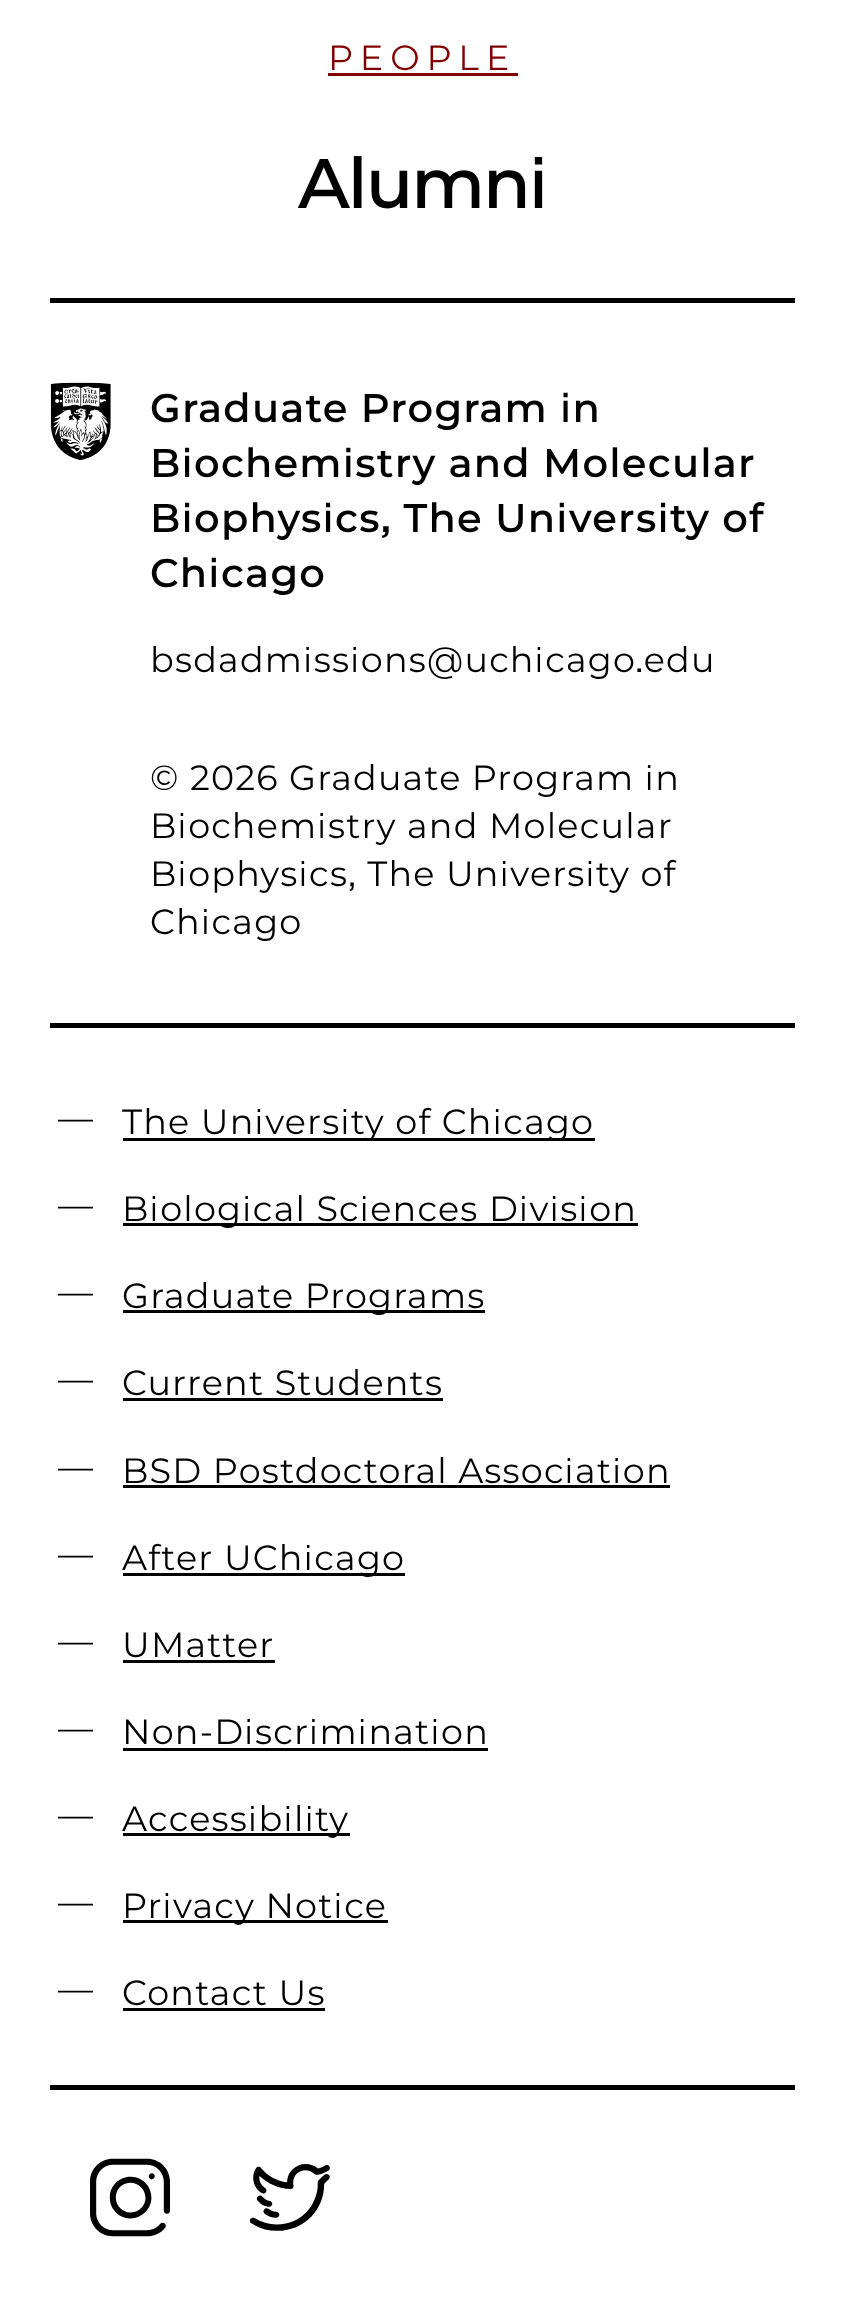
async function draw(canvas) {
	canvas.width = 843;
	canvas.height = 2323;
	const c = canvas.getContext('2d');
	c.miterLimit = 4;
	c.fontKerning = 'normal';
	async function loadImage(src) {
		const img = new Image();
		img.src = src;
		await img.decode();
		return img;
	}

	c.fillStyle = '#fff';
	c.fillRect(0, 0, 843, 2323);
	c.letterSpacing = '7px';
	c.font = '35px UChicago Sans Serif';
	c.fillStyle = '#800000';
	c.fillText('PEOPLE', 328, 70);
	c.fillRect(328, 73, 190, 3);
	c.letterSpacing = '-2px';
	c.font = '600 70px UChicago Sans Serif';
	c.fillStyle = '#000';
	c.fillText('Alumni', 298, 208);
	c.fillRect(50, 298, 745, 5);
	c.drawImage(await loadImage('img1.png'), 50, 382, 61, 78);
	c.letterSpacing = '1.2px';
	c.font = '600 40px UChicago Sans Serif';
	for (const [text, x, y] of [
		['Graduate Program in', 150, 422],
		['Biochemistry and Molecular', 150, 477],
		['Biophysics, The University of', 150, 532],
		['Chicago', 150, 587],
	]) {
		c.fillText(text, x, y);
	}
	c.font = '35px UChicago Sans Serif';
	for (const [text, x, y] of [
		['bsdadmissions@uchicago.edu', 150, 672],
		['© 2026 Graduate Program in', 150, 790],
		['Biochemistry and Molecular', 150, 838],
		['Biophysics, The University of', 150, 886],
		['Chicago', 150, 934],
	]) {
		c.fillText(text, x, y);
	}
	c.fillRect(50, 1023, 745, 5);
	c.fillRect(50, 2085, 745, 5);
	c.fillText('—', 58, 1130);
	c.fillRect(123, 1138, 472, 3);
	c.fillText('The University of Chicago', 122, 1134);
	c.fillText('—', 58, 1217);
	c.fillRect(123, 1223, 515, 3);
	c.fillText('Biological Sciences Division', 122, 1221);
	c.fillText('—', 58, 1304);
	c.fillRect(123, 1310, 362, 3);
	for (const [text, x, y] of [
		['Graduate Programs', 122, 1308],
		['—', 58, 1391],
		['Current Students', 122, 1395],
	]) {
		c.fillText(text, x, y);
	}
	c.fillRect(123, 1398, 320, 3);
	c.fillText('—', 58, 1479);
	c.fillText('BSD Postdoctoral Association', 122, 1483);
	c.fillRect(123, 1485, 547, 3);
	c.fillText('—', 58, 1566);
	c.fillRect(123, 1573, 282, 3);
	for (const [text, x, y] of [
		['After UChicago', 122, 1570],
		['—', 58, 1653],
		['UMatter', 122, 1657],
	]) {
		c.fillText(text, x, y);
	}
	c.fillRect(123, 1660, 152, 3);
	c.fillText('—', 58, 1740);
	c.fillText('Non-Discrimination', 122, 1744);
	c.fillRect(123, 1748, 365, 3);
	c.fillText('—', 58, 1827);
	c.fillRect(123, 1833, 227, 3);
	c.fillText('Accessibility', 122, 1831);
	c.fillText('—', 58, 1914);
	c.fillRect(123, 1920, 265, 3);
	for (const [text, x, y] of [
		['Privacy Notice', 122, 1918],
		['—', 58, 2001],
		['Contact Us', 122, 2005],
	]) {
		c.fillText(text, x, y);
	}
	c.fillRect(123, 2008, 202, 3);
	c.drawImage(await loadImage('img2.png'), 90, 2158, 80, 79);
	c.drawImage(await loadImage('img3.png'), 250, 2164, 80, 67);
}

draw(document.querySelector('canvas'));
